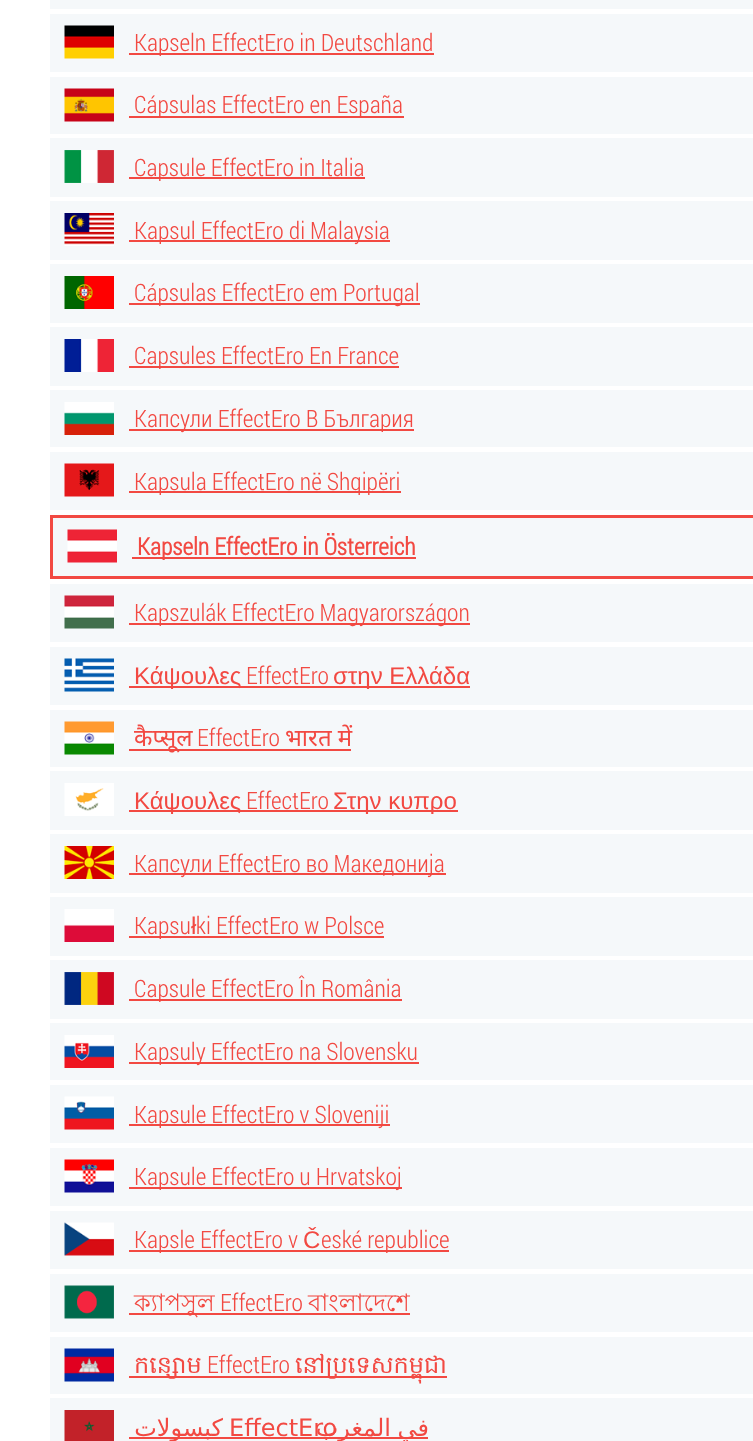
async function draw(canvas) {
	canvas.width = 753;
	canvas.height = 1441;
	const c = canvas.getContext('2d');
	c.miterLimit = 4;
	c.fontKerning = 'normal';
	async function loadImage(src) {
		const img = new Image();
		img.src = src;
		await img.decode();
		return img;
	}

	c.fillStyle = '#fff';
	c.fillRect(0, 0, 753, 1441);
	c.fillStyle = '#f5f8fa';
	c.fillRect(50, 0, 703, 9);
	c.fillRect(50, 14, 703, 58);
	c.drawImage(await loadImage('img1.png'), 64, 25, 50, 34);
	c.fillStyle = '#f24942';
	c.fillRect(129, 53, 305, 2);
	c.font = '300 24px Roboto Condensed';
	c.fillText('Kapseln EffectEro in Deutschland', 134, 51);
	c.fillStyle = '#f5f8fa';
	c.fillRect(50, 77, 703, 57);
	c.drawImage(await loadImage('img2.png'), 64, 88, 50, 34);
	c.fillStyle = '#f24942';
	c.fillRect(129, 116, 275, 2);
	c.fillText('Cápsulas EffectEro en España', 134, 113);
	c.fillStyle = '#f5f8fa';
	c.fillRect(50, 138, 703, 59);
	c.drawImage(await loadImage('img3.png'), 64, 150, 50, 33);
	c.fillStyle = '#f24942';
	c.fillRect(129, 177, 236, 2);
	c.fillText('Capsule EffectEro in Italia', 134, 176);
	c.fillStyle = '#f5f8fa';
	c.fillRect(50, 201, 703, 59);
	c.drawImage(await loadImage('img4.png'), 64, 213, 50, 33);
	c.fillStyle = '#f24942';
	c.fillRect(129, 240, 261, 2);
	c.fillText('Kapsul EffectEro di Malaysia', 134, 239);
	c.fillStyle = '#f5f8fa';
	c.fillRect(50, 264, 703, 59);
	c.drawImage(await loadImage('img5.png'), 64, 276, 50, 33);
	c.fillStyle = '#f24942';
	c.fillRect(129, 303, 291, 2);
	c.fillText('Cápsulas EffectEro em Portugal', 134, 301);
	c.fillStyle = '#f5f8fa';
	c.fillRect(50, 327, 703, 59);
	c.drawImage(await loadImage('img6.png'), 64, 339, 50, 33);
	c.fillStyle = '#f24942';
	c.fillRect(129, 366, 270, 2);
	c.fillText('Capsules EffectEro En France', 134, 364);
	c.fillStyle = '#f5f8fa';
	c.fillRect(50, 390, 703, 57);
	c.drawImage(await loadImage('img7.png'), 64, 402, 50, 33);
	c.fillStyle = '#f24942';
	c.fillRect(129, 429, 285, 2);
	c.fillText('Капсули EffectEro В България', 134, 427);
	c.fillStyle = '#f5f8fa';
	c.fillRect(50, 452, 703, 58);
	c.drawImage(await loadImage('img8.png'), 64, 463, 50, 34);
	c.fillStyle = '#f24942';
	c.fillRect(129, 491, 272, 2);
	c.fillText('Kapsula EffectEro në Shqipëri', 134, 490);
	for (const [x, y, w, h, color] of [
		[53, 518, 700, 58, '#f5f8fa'],
		[50, 515, 703, 3, '#f24942'],
		[50, 576, 703, 3, '#f24942'],
		[50, 515, 3, 64, '#f24942'],
	]) {
		c.fillStyle = color;
		c.fillRect(x, y, w, h);
	}
	c.drawImage(await loadImage('img9.png'), 67, 529, 50, 34);
	c.fillRect(132, 557, 284, 2);
	c.font = 'bold 24px Roboto Condensed';
	c.fillText('Kapseln EffectEro in Österreich', 137, 555);
	c.fillStyle = '#f5f8fa';
	c.fillRect(50, 584, 703, 58);
	c.drawImage(await loadImage('img10.png'), 64, 595, 50, 34);
	c.fillStyle = '#f24942';
	c.fillRect(129, 623, 341, 2);
	c.font = '300 24px Roboto Condensed';
	c.fillText('Kapszulák EffectEro Magyarországon', 134, 621);
	c.fillStyle = '#f5f8fa';
	c.fillRect(50, 647, 703, 58);
	c.drawImage(await loadImage('img11.png'), 64, 658, 50, 34);
	c.fillStyle = '#f24942';
	c.fillRect(129, 686, 341, 2);
	c.font = '24px Liberation Sans';
	c.fillText('Κάψουλες', 134, 684);
	c.font = '300 24px Roboto Condensed';
	c.fillText('EffectEro', 246, 684);
	c.font = '24px Liberation Sans';
	c.fillText('στην Ελλάδα', 333, 684);
	c.fillStyle = '#f5f8fa';
	c.fillRect(50, 710, 703, 57);
	c.drawImage(await loadImage('img12.png'), 64, 721, 50, 34);
	c.fillStyle = '#f24942';
	c.fillRect(129, 749, 222, 2);
	c.font = '24px Noto Sans';
	c.fillText('कैप्सूल', 134, 746);
	c.font = '300 24px Roboto Condensed';
	c.fillText('EffectEro', 197, 746);
	c.font = '24px Noto Sans';
	c.fillText('भारत में', 285, 746);
	c.fillStyle = '#f5f8fa';
	c.fillRect(50, 771, 703, 59);
	c.drawImage(await loadImage('img13.png'), 64, 783, 50, 33);
	c.fillStyle = '#f24942';
	c.fillRect(129, 810, 329, 2);
	c.font = '24px Liberation Sans';
	c.fillText('Κάψουλες', 134, 809);
	c.font = '300 24px Roboto Condensed';
	c.fillText('EffectEro', 246, 809);
	c.font = '24px Liberation Sans';
	c.fillText('Στην κυπρο', 333, 809);
	c.fillStyle = '#f5f8fa';
	c.fillRect(50, 834, 703, 59);
	c.drawImage(await loadImage('img14.png'), 64, 846, 50, 33);
	c.fillStyle = '#f24942';
	c.fillRect(129, 873, 317, 2);
	c.font = '300 24px Roboto Condensed';
	c.fillText('Капсули EffectEro во Македонија', 134, 872);
	c.fillStyle = '#f5f8fa';
	c.fillRect(50, 897, 703, 59);
	c.drawImage(await loadImage('img15.png'), 64, 909, 50, 33);
	c.fillStyle = '#f24942';
	c.fillRect(129, 936, 255, 2);
	c.fillText('Kapsu ki EffectEro w Polsce', 134, 934);
	c.font = '24px Liberation Sans';
	c.fillText('ł', 191, 934);
	c.fillStyle = '#f5f8fa';
	c.fillRect(50, 960, 703, 59);
	c.drawImage(await loadImage('img16.png'), 64, 972, 50, 33);
	c.fillStyle = '#f24942';
	c.fillRect(129, 999, 273, 2);
	c.font = '300 24px Roboto Condensed';
	c.fillText('Capsule EffectEro În România', 134, 997);
	c.fillStyle = '#f5f8fa';
	c.fillRect(50, 1023, 703, 57);
	c.drawImage(await loadImage('img17.png'), 64, 1035, 50, 33);
	c.fillStyle = '#f24942';
	c.fillRect(129, 1062, 290, 2);
	c.fillText('Kapsuly EffectEro na Slovensku', 134, 1060);
	c.fillStyle = '#f5f8fa';
	c.fillRect(50, 1085, 703, 58);
	c.drawImage(await loadImage('img18.png'), 64, 1096, 50, 34);
	c.fillStyle = '#f24942';
	c.fillRect(129, 1124, 261, 2);
	c.fillText('Kapsule EffectEro v Sloveniji', 134, 1123);
	c.fillStyle = '#f5f8fa';
	c.fillRect(50, 1148, 703, 58);
	c.drawImage(await loadImage('img19.png'), 64, 1159, 50, 34);
	c.fillStyle = '#f24942';
	c.fillRect(129, 1187, 273, 2);
	c.fillText('Kapsule EffectEro u Hrvatskoj', 134, 1185);
	c.fillStyle = '#f5f8fa';
	c.fillRect(50, 1211, 703, 58);
	c.drawImage(await loadImage('img20.png'), 64, 1222, 50, 34);
	c.fillStyle = '#f24942';
	c.fillRect(129, 1250, 320, 2);
	c.fillText('Kapsle EffectEro v', 134, 1248);
	c.font = '24px Liberation Sans';
	c.fillText('Č', 303, 1248);
	c.font = '300 24px Roboto Condensed';
	c.fillText('eské republice', 321, 1248);
	c.fillStyle = '#f5f8fa';
	c.fillRect(50, 1274, 703, 58);
	c.drawImage(await loadImage('img21.png'), 64, 1285, 50, 34);
	c.fillStyle = '#f24942';
	c.fillRect(129, 1313, 281, 2);
	c.font = '24px Lohit Bengali';
	c.fillText('ক্যাপসুল', 134, 1311);
	c.font = '300 24px Roboto Condensed';
	c.fillText('EffectEro', 220, 1311);
	c.font = '24px Lohit Bengali';
	c.fillText('বাংলাদেশে', 308, 1311);
	c.fillStyle = '#f5f8fa';
	c.fillRect(50, 1337, 703, 57);
	c.drawImage(await loadImage('img22.png'), 64, 1348, 50, 34);
	c.fillStyle = '#f24942';
	c.fillRect(129, 1376, 318, 2);
	c.font = '24px Hanuman';
	c.fillText('កន្សោម', 134, 1373);
	c.font = '300 24px Roboto Condensed';
	c.fillText('EffectEro', 207, 1373);
	c.font = '24px Hanuman';
	c.fillText('នៅប្រទេសកម្ពុជា', 295, 1373);
	c.fillStyle = '#f5f8fa';
	c.fillRect(50, 1398, 703, 43);
	c.drawImage(await loadImage('img23.png'), 64, 1410, 50, 31);
	c.fillStyle = '#f24942';
	c.fillRect(129, 1437, 299, 2);
	c.direction = 'rtl';
	c.font = '24px DejaVu Sans';
	c.fillText('كبسولات', 223, 1436);
	c.direction = 'ltr';
	c.fillText('EffectEro', 229, 1436);
	c.wordSpacing = '-1px';
	c.direction = 'rtl';
	c.fillText('في المغرب', 429, 1436);
}

draw(document.querySelector('canvas'));
